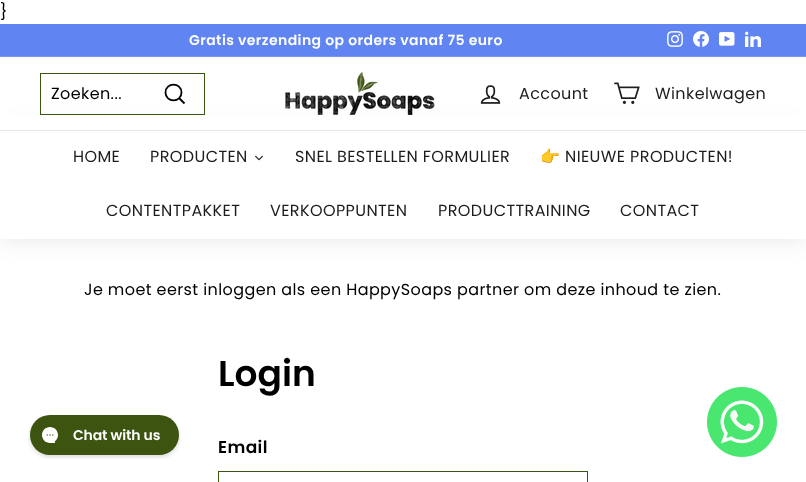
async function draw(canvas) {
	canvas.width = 806;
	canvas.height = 482;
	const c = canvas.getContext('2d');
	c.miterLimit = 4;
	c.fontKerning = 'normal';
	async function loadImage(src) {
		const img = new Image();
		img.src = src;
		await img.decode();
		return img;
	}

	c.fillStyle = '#fff';
	c.fillRect(0, 0, 806, 482);
	c.letterSpacing = '0.4px';
	c.font = '16px Poppins';
	c.fillStyle = '#000';
	c.fillText('}', 0, 17);
	c.fillStyle = '#6085f2';
	c.fillRect(0, 24, 806, 32);
	c.font = '600 14px Poppins';
	c.fillStyle = '#fff';
	c.fillText('Gratis verzending op orders vanaf 75 euro', 189, 45);
	c.drawImage(await loadImage('img1.png'), 667, 31, 16, 16);
	c.drawImage(await loadImage('img2.png'), 693, 31, 16, 16);
	c.drawImage(await loadImage('img3.png'), 719, 32, 16, 14);
	c.drawImage(await loadImage('img4.png'), 745, 31, 16, 16);
	c.fillStyle = '#7897f4';
	c.fillRect(0, 56, 806, 1);
	c.fillStyle = '#0000001a';
	c.filter = 'blur(12.5px)';
	c.beginPath();
	c.rect(0, 130, 806, 109);
	c.fill();
	c.filter = 'none';
	c.fillStyle = '#fff';
	c.fillRect(0, 114, 806, 16);
	c.strokeStyle = '#3c5411';
	c.strokeRect(40.5, 73.5, 164, 41);
	c.font = '16px Poppins';
	c.fillStyle = '#000';
	c.fillText('Zoeken...', 51, 99);
	c.beginPath();
	c.moveTo(181.5, 92.5);
	c.bezierCurveTo(181.5, 103, 165.5, 103, 165.5, 92.5);
	c.bezierCurveTo(165.5, 82, 181.5, 82, 181.5, 92.5);
	c.closePath();
	c.moveTo(184.5, 103.5);
	c.lineTo(179.5, 98.5);
	c.strokeStyle = '#000';
	c.lineWidth = 1.8;
	c.stroke();
	c.drawImage(await loadImage('img5.png'), 285, 72, 150, 43);
	c.drawImage(await loadImage('img6.png'), 480, 85, 21, 19);
	c.fillStyle = '#1c1d1d';
	c.fillText('Account', 519, 99);
	c.drawImage(await loadImage('img7.png'), 614, 82, 26, 22);
	c.fillText('Winkelwagen', 655, 99);
	c.fillStyle = '#fff';
	c.fillRect(0, 131, 806, 108);
	c.fillStyle = '#e8e8e8';
	c.fillRect(0, 130, 806, 1);
	c.fillStyle = '#1c1d1d';
	c.fillText('HOME', 73, 162);
	c.fillText('PRODUCTEN', 150, 162);
	c.drawImage(await loadImage('img8.png'), 255, 155, 8, 6);
	c.fillText('SNEL BESTELLEN FORMULIER', 295, 162);
	c.font = '16px Noto Color Emoji';
	c.fillText('👉', 540, 162);
	c.font = '16px Poppins';
	for (const [text, x, y] of [
		['NIEUWE PRODUCTEN!', 565, 162],
		['CONTENTPAKKET', 106, 216],
		['VERKOOPPUNTEN', 270, 216],
		['PRODUCTTRAINING', 438, 216],
		['CONTACT', 620, 216],
	]) {
		c.fillText(text, x, y);
	}
	c.fillStyle = '#000';
	c.fillText('Je moet eerst inloggen als een HappySoaps partner om deze inhoud te zien.', 84, 295);
	c.letterSpacing = '0px';
	c.font = '600 36px Poppins';
	c.fillText('Login', 218, 386);
	c.letterSpacing = '0.4px';
	c.font = '600 17px Poppins';
	c.fillText('Email', 218, 453);
	c.strokeStyle = '#3c5411';
	c.lineWidth = 1;
	c.strokeRect(218.5, 471.5, 369, 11);
	c.drawImage(await loadImage('img9.png'), 28, 415, 153, 44);
	c.drawImage(await loadImage('img10.png'), 707, 387, 70, 70);
}

draw(document.querySelector('canvas'));
